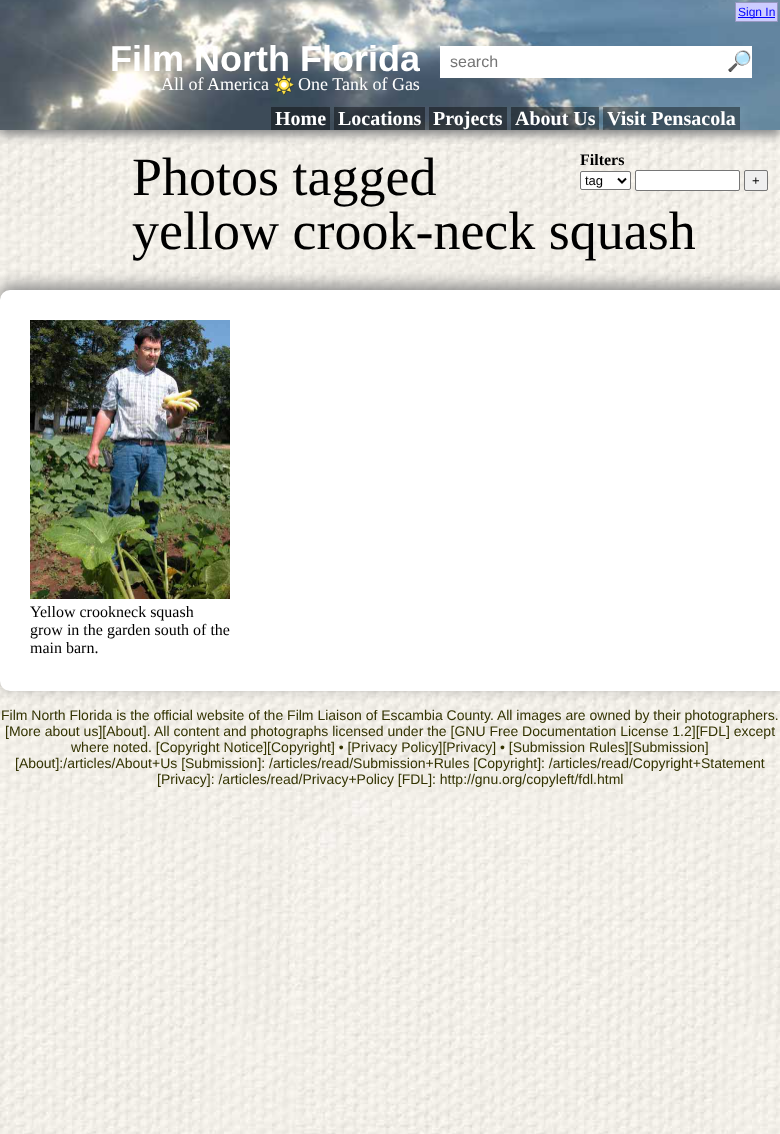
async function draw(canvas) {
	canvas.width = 780;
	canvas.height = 1134;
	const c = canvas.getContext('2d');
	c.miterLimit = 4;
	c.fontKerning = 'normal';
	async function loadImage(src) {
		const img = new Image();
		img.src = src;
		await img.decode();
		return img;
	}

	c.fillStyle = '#fff';
	c.fillRect(0, 0, 780, 1134);
	c.drawImage(await loadImage('img1.png'), 0, 130, 780, 1004);
	c.fillStyle = '#888';
	c.filter = 'blur(5px)';
	c.beginPath();
	c.rect(0, 5, 780, 130);
	c.fill();
	c.filter = 'none';
	c.drawImage(await loadImage('img2.png'), 0, 0, 780, 130);
	c.fillStyle = '#ccf';
	c.beginPath();
	c.rect(735.5, 2.5, 42, 19);
	c.fill();
	c.strokeStyle = '#9797c0';
	c.stroke();
	c.fillStyle = '#00f';
	c.fillRect(738, 17, 37, 1);
	c.font = '12px Liberation Sans';
	c.fillText('Sign In', 738, 16);
	c.fillStyle = '#888';
	c.filter = 'blur(7.5px)';
	c.beginPath();
	c.roundRect(0, 285, 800, 401, 10);
	c.fill();
	c.filter = 'none';
	c.font = '14px Liberation Sans';
	c.fillStyle = '#330';
	for (const [text, x, y] of [
		['Film North Florida is the official website of the Film Liaison of Escambia County. All images are owned by their photographers.', 1, 720],
		['[More about us][About].', 5, 736],
		['All content and photographs licensed under the [GNU Free Documentation License 1.2][FDL] except', 154, 736],
		['where noted. [Copyright Notice][Copyright] • [Privacy Policy][Privacy] • [Submission Rules][Submission]', 71, 752],
		['[About]:/articles/About+Us [Submission]: /articles/read/Submission+Rules [Copyright]: /articles/read/Copyright+Statement', 15, 768],
		['[Privacy]: /articles/read/Privacy+Policy [FDL]: http://gnu.org/copyleft/fdl.html', 157, 784],
	]) {
		c.fillText(text, x, y);
	}
	c.save();
	c.beginPath();
	c.rect(20, 38, 400, 42);
	c.clip();
	c.font = 'bold 36px Liberation Sans';
	c.fillStyle = '#fff';
	c.fillText('Film North Florida', 110, 71);
	c.restore();
	c.fillStyle = '#fff';
	c.fillRect(440, 46, 312, 32);
	c.font = '16px Liberation Sans';
	c.fillStyle = '#757575';
	c.fillText('search', 450, 67);
	c.font = '20px Noto Color Emoji';
	c.fillStyle = '#000';
	c.fillText('🔎', 727, 68);
	c.font = '18px Liberation Serif';
	c.fillStyle = '#fff';
	c.fillText('All of America', 161, 90);
	c.drawImage(await loadImage('img3.png'), 274, 75, 20, 20);
	c.fillText('One Tank of Gas', 298, 90);
	c.fillStyle = '#00000066';
	c.fillRect(271, 107, 59, 23);
	c.font = 'bold 20px Liberation Serif';
	c.fillStyle = '#fff';
	c.fillText('Home', 275, 125);
	c.fillStyle = '#00000066';
	c.fillRect(334, 107, 91, 23);
	c.fillStyle = '#fff';
	c.fillText('Locations', 338, 125);
	c.fillStyle = '#00000066';
	c.fillRect(429, 107, 78, 23);
	c.fillStyle = '#fff';
	c.fillText('Projects', 433, 125);
	c.fillStyle = '#00000066';
	c.fillRect(511, 107, 88, 23);
	c.fillStyle = '#fff';
	c.fillText('About Us', 515, 125);
	c.fillStyle = '#00000066';
	c.fillRect(603, 107, 137, 23);
	c.fillStyle = '#fff';
	c.fillText('Visit Pensacola', 607, 125);
	c.font = 'bold 16px Liberation Serif';
	c.fillStyle = '#000';
	c.fillText('Filters', 580, 165);
	c.fillStyle = '#fff';
	c.beginPath();
	c.roundRect(580.5, 171.5, 50, 18, 1.5);
	c.fill();
	c.strokeStyle = '#767676';
	c.stroke();
	c.beginPath();
	c.moveTo(618, 178.5);
	c.lineTo(622, 182.5);
	c.lineTo(626, 178.5);
	c.strokeStyle = '#000';
	c.lineWidth = 2;
	c.stroke();
	c.font = '13px Liberation Sans';
	c.fillStyle = '#000';
	c.fillText('tag', 585, 185);
	c.fillStyle = '#fff';
	c.beginPath();
	c.roundRect(635.5, 170.5, 104, 20, 1.5);
	c.fill();
	c.strokeStyle = '#767676';
	c.lineWidth = 1;
	c.stroke();
	c.fillStyle = '#efefef';
	c.beginPath();
	c.roundRect(744.5, 170.5, 23, 20, 1.5);
	c.fill();
	c.stroke();
	c.fillStyle = '#000';
	c.fillText('+', 752, 185);
	c.font = '54px Liberation Serif';
	c.fillText('Photos tagged', 132, 195);
	c.fillText('yellow crook-neck squash', 132, 249);
	c.fillStyle = '#fff';
	c.beginPath();
	c.roundRect(0, 290, 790, 401, 10);
	c.fill();
	c.drawImage(await loadImage('img4.png'), 30, 320, 200, 279);
	c.font = '16px Liberation Serif';
	c.fillStyle = '#000';
	for (const [text, x, y] of [
		['Yellow crookneck squash', 30, 617],
		['grow in the garden south of the', 30, 635],
		['main barn.', 30, 653],
	]) {
		c.fillText(text, x, y);
	}
}

draw(document.querySelector('canvas'));
